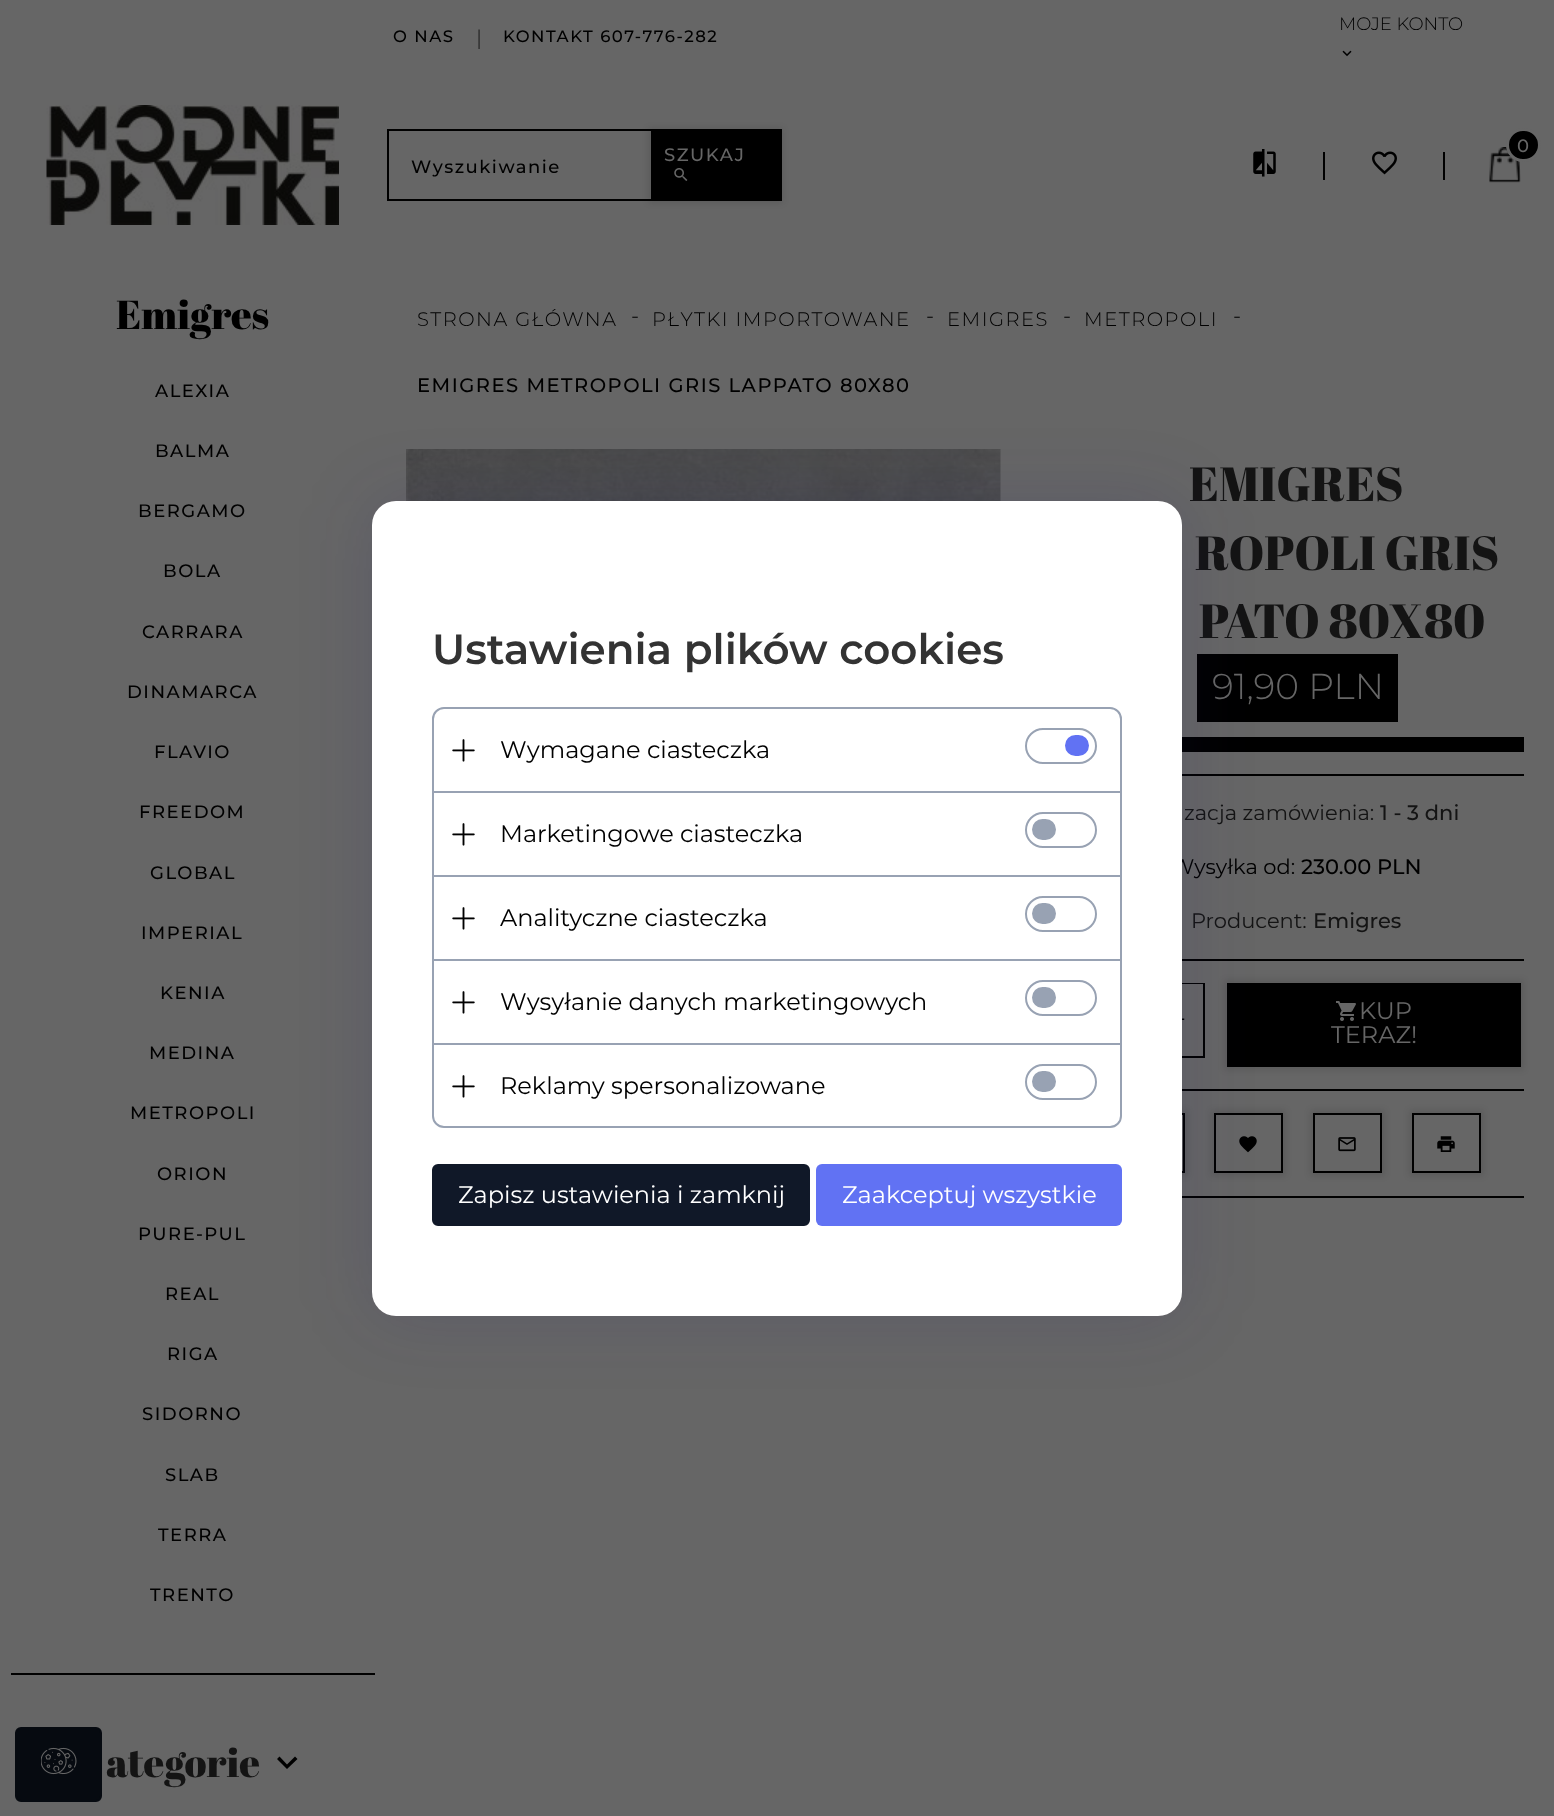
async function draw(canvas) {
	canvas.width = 1554;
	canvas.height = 1816;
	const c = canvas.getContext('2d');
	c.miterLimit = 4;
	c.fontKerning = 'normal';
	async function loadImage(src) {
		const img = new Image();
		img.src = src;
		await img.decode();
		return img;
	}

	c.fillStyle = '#666';
	c.fillRect(0, 0, 1554, 1816);
	c.font = '300 18px Montserrat';
	c.fillStyle = '#000';
	c.fillText('MOJE KONTO', 1339, 30);
	c.drawImage(await loadImage('img1.png'), 1342, 50, 10, 7);
	c.letterSpacing = '1.5px';
	c.font = '500 16.5px Montserrat';
	c.fillText('O NAS', 393, 42);
	c.letterSpacing = '0px';
	c.font = '300 21px Montserrat';
	c.fillStyle = '#141414';
	c.fillText('|', 476, 45);
	c.letterSpacing = '1.5px';
	c.font = '500 16.5px Montserrat';
	c.fillStyle = '#000';
	c.fillText('KONTAKT 607-776-282', 503, 42);
	c.drawImage(await loadImage('img2.png'), 46, 105, 293, 120);
	c.drawImage(await loadImage('img3.png'), 1489, 147, 32, 36);
	c.beginPath();
	c.roundRect(1507.5, 129.5, 32, 31, 15.5);
	c.fill();
	c.strokeStyle = '#666';
	c.lineWidth = 3;
	c.stroke();
	c.letterSpacing = '0px';
	c.font = '500 18px Montserrat';
	c.fillStyle = '#666';
	c.fillText('0', 1517, 152);
	c.drawImage(await loadImage('img4.png'), 1253, 149, 23, 28);
	c.fillStyle = '#000';
	c.fillRect(1323, 152, 2, 28);
	c.drawImage(await loadImage('img5.png'), 1372, 151, 25, 24);
	c.fillRect(1443, 152, 2, 28);
	c.strokeStyle = '#000';
	c.lineWidth = 2;
	c.strokeRect(388, 130, 393, 70);
	c.fillStyle = '#0000001a';
	c.filter = 'blur(3px)';
	c.beginPath();
	c.rect(648, 128, 135, 75);
	c.fill();
	c.filter = 'none';
	c.fillStyle = '#000';
	c.fillRect(651, 131, 129, 68);
	c.letterSpacing = '1.5px';
	c.fillStyle = '#666';
	c.fillText('SZUKAJ', 664, 161);
	c.drawImage(await loadImage('img6.png'), 674, 168, 14, 13);
	c.fillStyle = '#000';
	c.fillText('Wyszukiwanie', 411, 173);
	c.letterSpacing = '0px';
	c.font = '40.5px Abril Fatface';
	c.fillText('Emigres', 116, 329);
	c.letterSpacing = '1.5px';
	c.font = '500 18px Montserrat';
	for (const [text, x, y] of [
		['ALEXIA', 155, 397],
		['BALMA', 155, 457],
		['BERGAMO', 138, 517],
		['BOLA', 163, 577],
		['CARRARA', 142, 638],
		['DINAMARCA', 127, 698],
		['FLAVIO', 154, 758],
		['FREEDOM', 139, 818],
		['GLOBAL', 150, 879],
		['IMPERIAL', 141, 939],
		['KENIA', 160, 999],
		['MEDINA', 149, 1059],
		['METROPOLI', 130, 1119],
		['ORION', 157, 1180],
		['PURE-PUL', 138, 1240],
		['REAL', 165, 1300],
		['RIGA', 167, 1360],
		['SIDORNO', 142, 1420],
		['SLAB', 165, 1481],
		['TERRA', 158, 1541],
		['TRENTO', 150, 1601],
	]) {
		c.fillText(text, x, y);
	}
	c.fillRect(11, 1673, 364, 2);
	c.letterSpacing = '0px';
	c.font = '40.5px Abril Fatface';
	c.fillStyle = '#141414';
	c.fillText('ategorie', 106, 1777);
	c.fillStyle = '#000';
	c.beginPath();
	c.moveTo(279.5, 1756.5);
	c.lineTo(287, 1764.5);
	c.lineTo(295, 1756.5);
	c.lineTo(297.5, 1759);
	c.lineTo(287, 1769);
	c.lineTo(277, 1759);
	c.closePath();
	c.fill();
	c.letterSpacing = '1.5px';
	c.font = '300 19.5px Montserrat';
	c.fillText('STRONA GŁÓWNA', 417, 326);
	c.letterSpacing = '0px';
	c.font = '21px Montserrat';
	c.fillStyle = '#141414';
	c.fillText('-', 631, 323);
	c.letterSpacing = '1.5px';
	c.font = '300 19.5px Montserrat';
	c.fillStyle = '#000';
	c.fillText('PŁYTKI IMPORTOWANE', 652, 326);
	c.letterSpacing = '0px';
	c.font = '21px Montserrat';
	c.fillStyle = '#141414';
	c.fillText('-', 926, 323);
	c.letterSpacing = '1.5px';
	c.font = '300 19.5px Montserrat';
	c.fillStyle = '#000';
	c.fillText('EMIGRES', 947, 326);
	c.letterSpacing = '0px';
	c.font = '21px Montserrat';
	c.fillStyle = '#141414';
	c.fillText('-', 1063, 323);
	c.letterSpacing = '1.5px';
	c.font = '300 19.5px Montserrat';
	c.fillStyle = '#000';
	c.fillText('METROPOLI', 1084, 326);
	c.letterSpacing = '0px';
	c.font = '21px Montserrat';
	c.fillStyle = '#141414';
	c.fillText('-', 1233, 323);
	c.letterSpacing = '1.5px';
	c.font = '500 19.5px Montserrat';
	c.fillStyle = '#000';
	c.fillText('EMIGRES METROPOLI GRIS LAPPATO 80X80', 417, 392);
	c.drawImage(await loadImage('img7.png'), 406, 449, 595, 52);
	c.fillRect(1182, 774, 342, 2);
	c.letterSpacing = '0px';
	c.font = '48px Abril Fatface';
	c.fillStyle = '#141414';
	for (const [text, x, y] of [
		['EMIGRES', 1189, 501],
		['ROPOLI GRIS', 1195, 570],
		['PATO 80X80', 1199, 638],
	]) {
		c.fillText(text, x, y);
	}
	c.fillStyle = '#000';
	c.fillRect(1197, 654, 201, 68);
	c.font = '300 36px Montserrat';
	c.fillStyle = '#666';
	c.fillText('91,90 PLN', 1212, 699);
	c.fillStyle = '#000';
	c.fillRect(1182, 737, 342, 15);
	c.fillRect(1182, 959, 342, 2);
	c.font = '21px Montserrat';
	c.fillStyle = '#141414';
	c.fillText('zacja zamówienia:', 1184, 820);
	c.font = '500 21px Montserrat';
	c.fillText('1 - 3 dni', 1380, 820);
	c.font = '21px Montserrat';
	c.fillStyle = '#000';
	c.fillText('Wysyłka od:', 1171, 874);
	c.font = '500 21px Montserrat';
	c.fillText('230.00 PLN', 1301, 874);
	c.font = '21px Montserrat';
	c.fillStyle = '#141414';
	c.fillText('Producent:', 1191, 928);
	c.font = '500 21px Montserrat';
	c.fillText('Emigres', 1313, 928);
	c.fillStyle = '#000';
	c.fillRect(1182, 1089, 342, 2);
	c.strokeRect(1072, 984, 132, 73);
	c.fillStyle = '#666';
	c.fillRect(1182, 984, 21, 1);
	c.drawImage(await loadImage('img8.png'), 1182, 1018, 3, 2);
	c.fillStyle = '#0000001a';
	c.filter = 'blur(3px)';
	c.beginPath();
	c.rect(1224, 980, 300, 90);
	c.fill();
	c.filter = 'none';
	c.fillStyle = '#000';
	c.fillRect(1227, 983, 294, 84);
	c.drawImage(await loadImage('img9.png'), 1336, 1001, 20, 20);
	c.font = '24px Montserrat';
	c.fillStyle = '#666';
	c.fillText('KUP', 1359, 1019);
	c.fillText('TERAZ!', 1331, 1043);
	c.fillStyle = '#000';
	c.fillRect(1182, 1196, 342, 2);
	c.fillStyle = '#0000001a';
	c.filter = 'blur(3px)';
	c.beginPath();
	c.rect(1113, 1110, 75, 66);
	c.fill();
	c.filter = 'none';
	c.strokeRect(1117, 1114, 67, 58);
	c.filter = 'blur(3px)';
	c.beginPath();
	c.rect(1211, 1110, 75, 66);
	c.fill();
	c.filter = 'none';
	c.fillStyle = '#666';
	c.beginPath();
	c.rect(1215, 1114, 67, 58);
	c.fill();
	c.stroke();
	c.drawImage(await loadImage('img10.png'), 1239, 1136, 18, 17);
	c.fillStyle = '#0000001a';
	c.filter = 'blur(3px)';
	c.beginPath();
	c.rect(1310, 1110, 75, 66);
	c.fill();
	c.filter = 'none';
	c.fillStyle = '#666';
	c.beginPath();
	c.rect(1314, 1114, 67, 58);
	c.fill();
	c.stroke();
	c.drawImage(await loadImage('img11.png'), 1338, 1137, 18, 15);
	c.fillStyle = '#0000001a';
	c.filter = 'blur(3px)';
	c.beginPath();
	c.rect(1409, 1110, 75, 66);
	c.fill();
	c.filter = 'none';
	c.fillStyle = '#666';
	c.beginPath();
	c.rect(1413, 1114, 67, 58);
	c.fill();
	c.stroke();
	c.drawImage(await loadImage('img12.png'), 1437, 1136, 18, 16);
	c.fillStyle = '#211a6926';
	c.filter = 'blur(36px)';
	c.beginPath();
	c.roundRect(372, 501, 810, 815, 24);
	c.fill();
	c.filter = 'none';
	c.fillStyle = '#fff';
	c.beginPath();
	c.roundRect(372, 501, 810, 815, 24);
	c.fill();
	c.font = '600 42px Montserrat';
	c.fillStyle = '#333';
	c.fillText('Ustawienia plików cookies', 432, 664);
	c.beginPath();
	c.roundRect(433, 708, 688, 419, 11);
	c.strokeStyle = '#98a2b3';
	c.stroke();
	c.drawImage(await loadImage('img13.png'), 452, 739, 23, 23);
	c.font = '24px Montserrat';
	c.fillStyle = '#000';
	c.fillText('Wymagane ciasteczka', 500, 758);
	c.beginPath();
	c.roundRect(1026, 729, 70, 34, 17);
	c.stroke();
	c.fillStyle = '#6172f3';
	c.beginPath();
	c.roundRect(1066, 736, 22, 19, 9.5);
	c.fill();
	c.strokeStyle = '#6172f3';
	c.stroke();
	c.fillStyle = '#98a2b3';
	c.fillRect(434, 791, 687, 2);
	c.drawImage(await loadImage('img13.png'), 452, 823, 23, 23);
	c.fillStyle = '#000';
	c.fillText('Marketingowe ciasteczka', 500, 842);
	c.beginPath();
	c.roundRect(1026, 813, 70, 34, 17);
	c.strokeStyle = '#98a2b3';
	c.stroke();
	c.fillStyle = '#98a2b3';
	c.beginPath();
	c.roundRect(1033, 820, 22, 19, 9.5);
	c.fill();
	c.stroke();
	c.fillRect(434, 875, 687, 2);
	c.drawImage(await loadImage('img13.png'), 452, 907, 23, 23);
	c.fillStyle = '#000';
	c.fillText('Analityczne ciasteczka', 500, 926);
	c.beginPath();
	c.roundRect(1026, 897, 70, 34, 17);
	c.stroke();
	c.fillStyle = '#98a2b3';
	c.beginPath();
	c.roundRect(1033, 904, 22, 19, 9.5);
	c.fill();
	c.stroke();
	c.fillRect(434, 959, 687, 2);
	c.drawImage(await loadImage('img13.png'), 452, 991, 23, 23);
	c.fillStyle = '#000';
	c.fillText('Wysyłanie danych marketingowych', 500, 1010);
	c.beginPath();
	c.roundRect(1026, 981, 70, 34, 17);
	c.stroke();
	c.fillStyle = '#98a2b3';
	c.beginPath();
	c.roundRect(1033, 988, 22, 19, 9.5);
	c.fill();
	c.stroke();
	c.fillRect(434, 1043, 687, 2);
	c.drawImage(await loadImage('img13.png'), 452, 1075, 23, 23);
	c.fillStyle = '#000';
	c.fillText('Reklamy spersonalizowane', 500, 1094);
	c.beginPath();
	c.roundRect(1026, 1065, 70, 34, 17);
	c.stroke();
	c.fillStyle = '#98a2b3';
	c.beginPath();
	c.roundRect(1033, 1072, 22, 19, 9.5);
	c.fill();
	c.stroke();
	c.fillStyle = '#101828';
	c.beginPath();
	c.roundRect(433, 1165, 376, 60, 5);
	c.fill();
	c.strokeStyle = '#101828';
	c.stroke();
	c.fillStyle = '#fff';
	c.fillText('Zapisz ustawienia i zamknij', 458, 1203);
	c.fillStyle = '#6172f3';
	c.beginPath();
	c.roundRect(816, 1164, 306, 62, 6);
	c.fill();
	c.fillStyle = '#fff';
	c.fillText('Zaakceptuj wszystkie', 842, 1203);
	c.fillStyle = '#060a10';
	c.beginPath();
	c.roundRect(16, 1728, 85, 73, 5);
	c.fill();
	c.strokeStyle = '#060a10';
	c.stroke();
	c.drawImage(await loadImage('img14.png'), 41, 1747, 36, 28);
}

draw(document.querySelector('canvas'));
